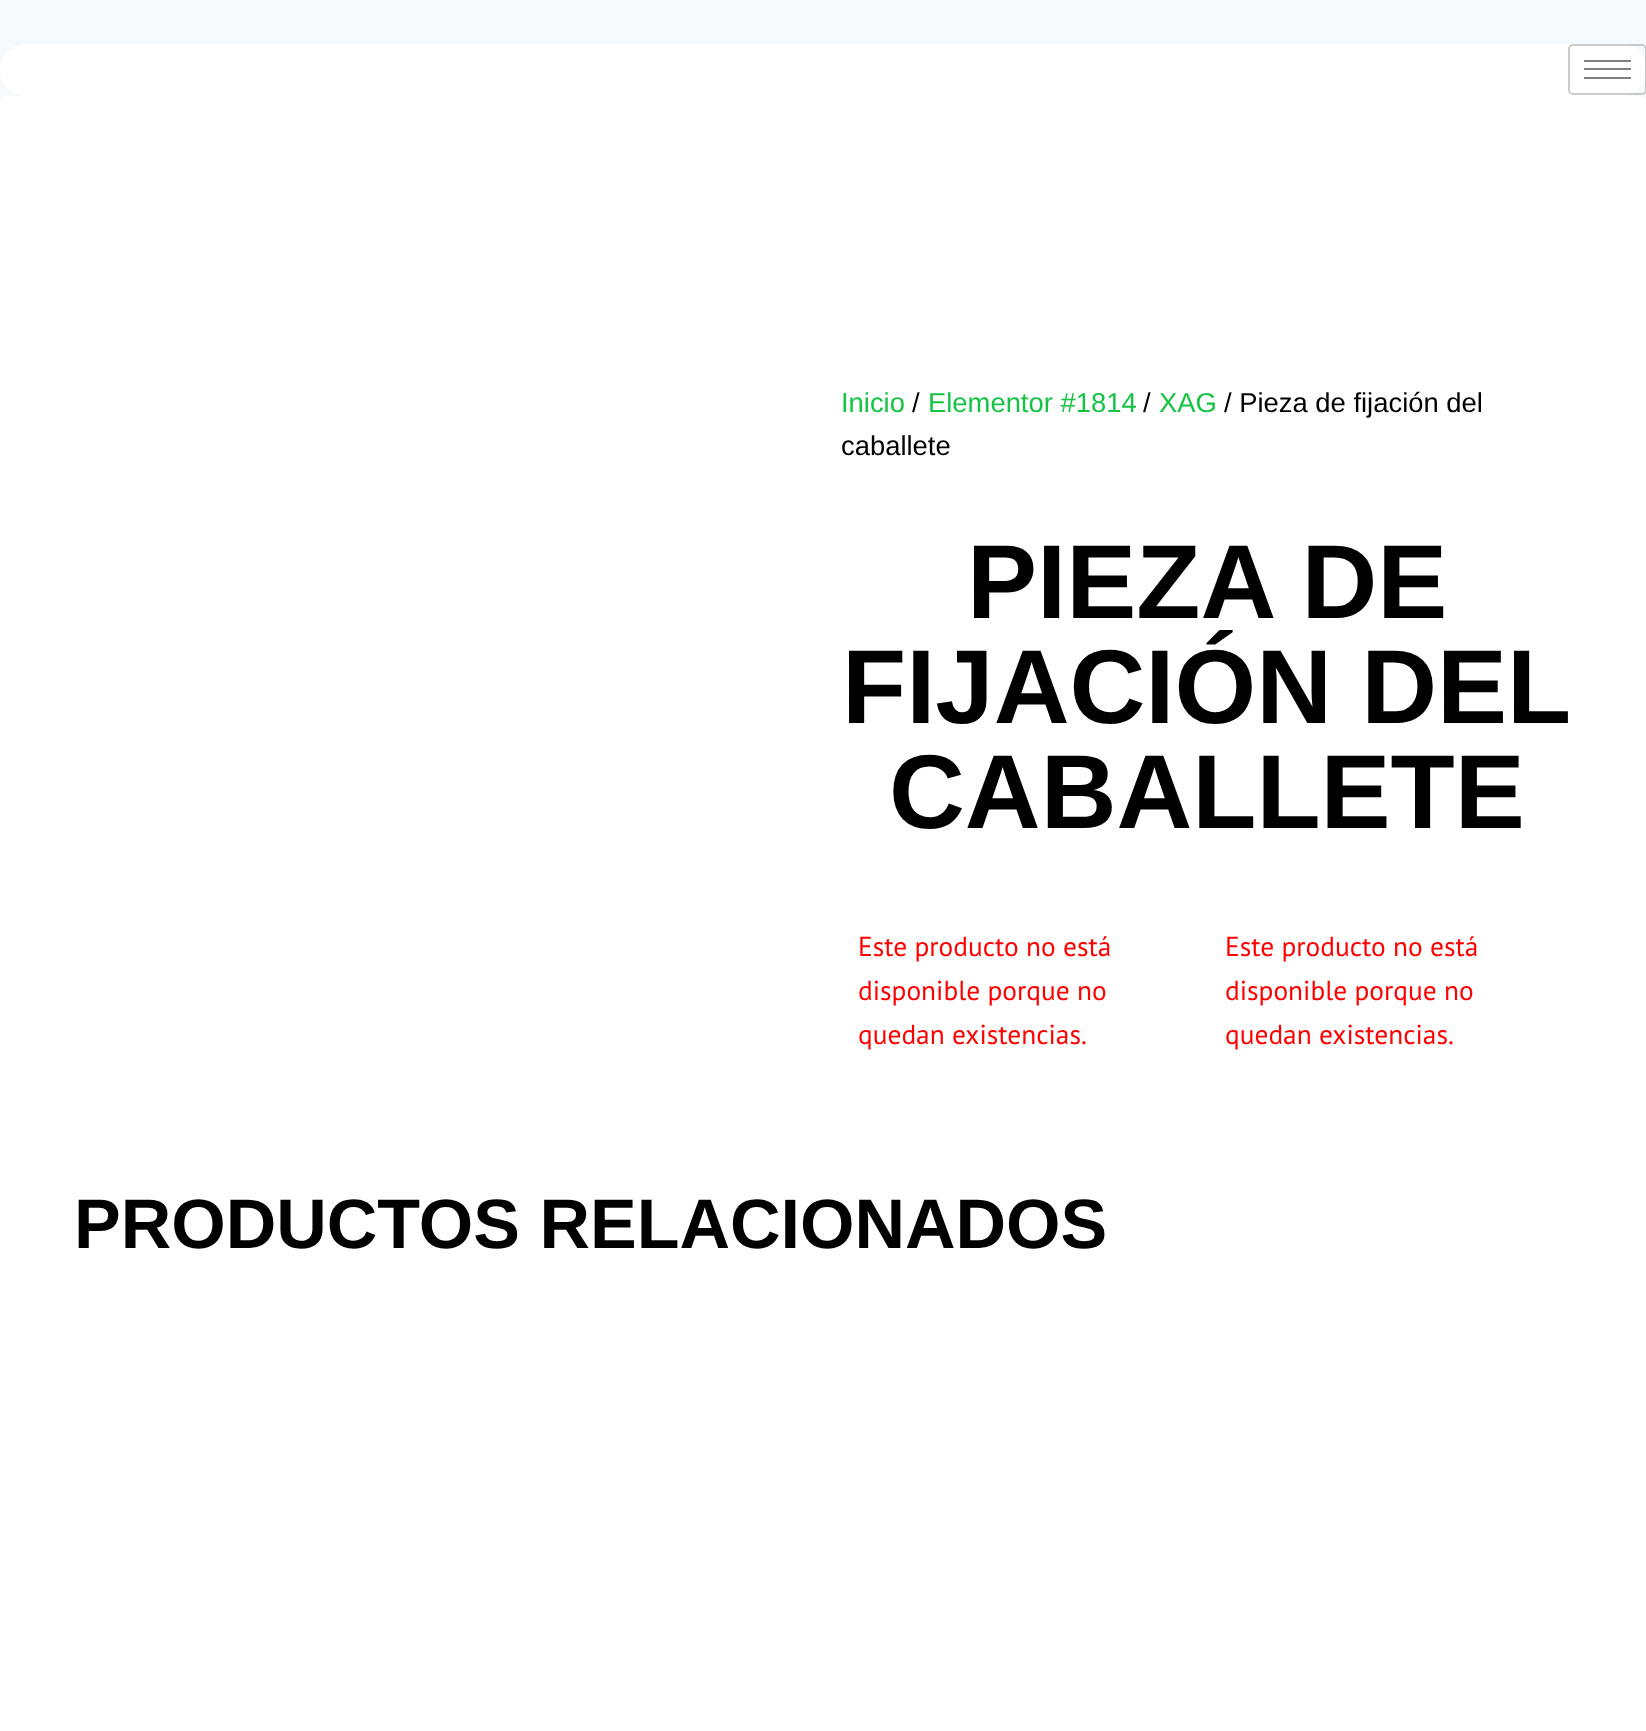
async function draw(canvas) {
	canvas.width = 1646;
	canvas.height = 1731;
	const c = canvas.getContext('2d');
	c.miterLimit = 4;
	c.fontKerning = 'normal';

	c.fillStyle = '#f7fafc';
	c.fillRect(0, 0, 1646, 1731);
	c.fillStyle = '#fff';
	c.beginPath();
	c.roundRect(0, 44, 329, 52, [26, 0, 0, 26]);
	c.fill();
	c.beginPath();
	c.moveTo(329, 44);
	c.lineTo(1621, 44);
	c.bezierCurveTo(1635.5, 44, 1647, 55.5, 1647, 70);
	c.bezierCurveTo(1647, 84.5, 1635.5, 96, 1621, 96);
	c.lineTo(329, 96);
	c.closePath();
	c.fill();
	c.beginPath();
	c.roundRect(1569, 45, 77, 49, 4);
	c.strokeStyle = '#00000033';
	c.lineWidth = 2;
	c.stroke();
	for (const [x, y, w, h, color] of [
		[1584, 60, 47, 2, '#808080'],
		[1584, 68, 47, 2, '#808080'],
		[1584, 77, 47, 2, '#808080'],
	]) {
		c.fillStyle = color;
		c.fillRect(x, y, w, h);
	}
	c.fillStyle = '#fff';
	c.beginPath();
	c.roundRect(0, 96, 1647, 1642, 7);
	c.fill();
	c.font = '27.4px Liberation Sans';
	c.fillStyle = '#16c345';
	c.fillText('Inicio', 841, 412);
	c.fillStyle = '#000';
	c.fillText('/', 912, 412);
	c.fillStyle = '#16c345';
	c.fillText('Elementor #1814', 928, 412);
	c.fillStyle = '#000';
	c.fillText('/', 1143, 412);
	c.fillStyle = '#16c345';
	c.fillText('XAG', 1159, 412);
	c.fillStyle = '#000';
	c.fillText('/ Pieza de fijación del', 1224, 412);
	c.fillText('caballete', 841, 455);
	c.font = 'bold 105px Liberation Sans';
	for (const [text, x, y] of [
		['PIEZA DE', 967, 618],
		['FIJACIÓN DEL', 842, 723],
		['CABALLETE', 889, 828],
	]) {
		c.fillText(text, x, y);
	}
	c.font = '27.4px PT Sans';
	c.fillStyle = '#f00';
	for (const [text, x, y] of [
		['Este producto no está', 858, 956],
		['disponible porque no', 858, 1000],
		['quedan existencias.', 858, 1044],
		['Este producto no está', 1225, 956],
		['disponible porque no', 1225, 1000],
		['quedan existencias.', 1225, 1044],
	]) {
		c.fillText(text, x, y);
	}
	c.font = 'bold 70px Liberation Sans';
	c.fillStyle = '#000';
	c.fillText('PRODUCTOS RELACIONADOS', 74, 1248);
}

draw(document.querySelector('canvas'));
